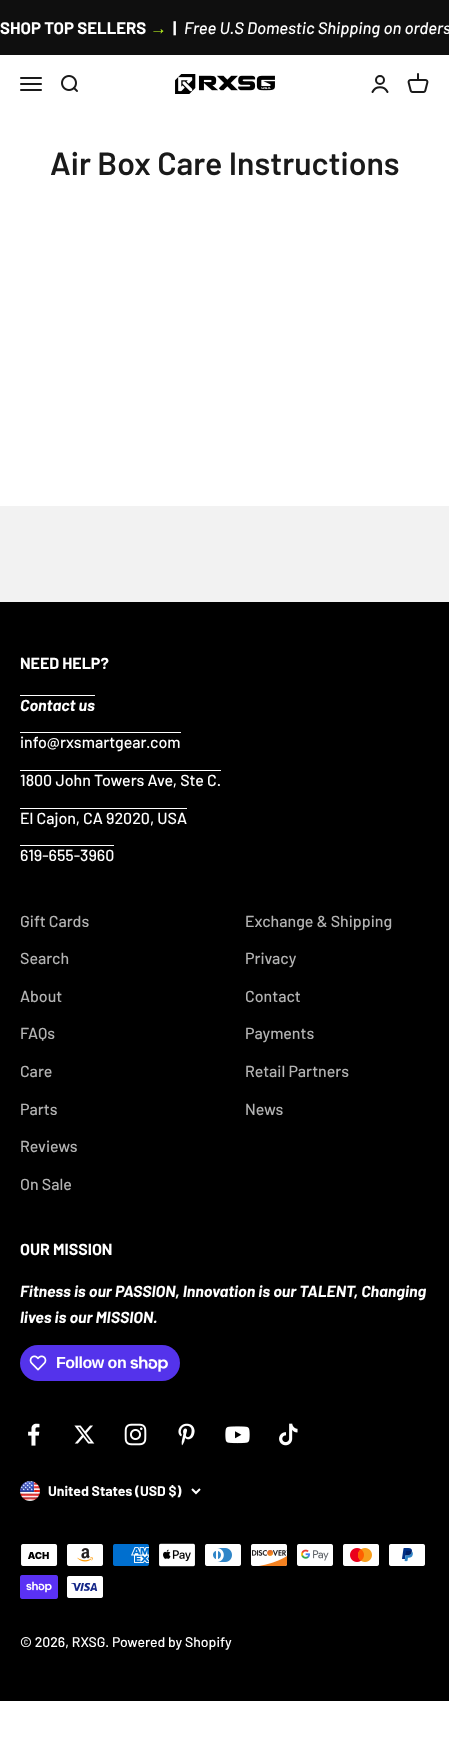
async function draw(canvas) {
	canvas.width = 449;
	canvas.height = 1762;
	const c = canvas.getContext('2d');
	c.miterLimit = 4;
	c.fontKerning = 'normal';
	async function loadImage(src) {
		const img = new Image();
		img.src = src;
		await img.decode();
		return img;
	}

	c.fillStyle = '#fff';
	c.fillRect(0, 0, 449, 1762);
	c.fillStyle = '#0f0f0f';
	c.fillRect(0, 0, 449, 55);
	c.font = 'bold 16.75px Barlow';
	c.fillStyle = '#fff';
	c.fillText('SHOP TOP SELLERS', 0, 34);
	c.font = 'bold 16.75px Liberation Sans';
	c.fillStyle = '#c2ff22';
	c.fillText('→', 150, 34);
	c.font = 'bold 16.75px Barlow';
	c.fillStyle = '#fff';
	c.fillText('|', 173, 34);
	c.font = 'italic 500 16.75px Barlow';
	c.fillText('Free U.S Domestic Shipping on orders', 184, 34);
	c.drawImage(await loadImage('img1.png'), 20, 77, 22, 14);
	c.drawImage(await loadImage('img2.png'), 61, 75, 17, 17);
	c.drawImage(await loadImage('img3.png'), 175, 74, 100, 20);
	c.beginPath();
	c.arc(380, 80, 4, 0, 2 * Math.PI);
	c.strokeStyle = '#1a1a1a';
	c.lineWidth = 2;
	c.stroke();
	c.beginPath();
	c.moveTo(372.5, 92);
	c.bezierCurveTo(375.5, 85.5, 384.5, 85.5, 387.5, 92);
	c.lineCap = 'round';
	c.stroke();
	c.drawImage(await loadImage('img4.png'), 407, 73, 22, 20);
	c.font = '600 32px Barlow';
	c.fillStyle = '#1a1a1a';
	c.fillText('Air Box Care Instructions', 50, 175);
	c.fillStyle = '#f2f2f2';
	c.fillRect(0, 506, 449, 96);
	c.fillStyle = '#000';
	c.fillRect(0, 602, 449, 1099);
	c.font = 'bold 16px Barlow';
	c.fillStyle = '#fff';
	c.fillText('NEED HELP?', 20, 669);
	c.font = 'italic bold 16px Barlow';
	c.fillText('Contact us', 20, 711);
	c.fillRect(20, 695, 75, 1);
	c.font = '500 16px Barlow';
	c.fillText('info@rxsmartgear.com', 20, 748);
	c.fillRect(20, 732, 161, 1);
	c.fillText('1800 John Towers Ave, Ste C.', 20, 786);
	c.fillRect(20, 770, 201, 1);
	c.fillText('El Cajon, CA 92020, USA', 20, 824);
	c.fillRect(20, 808, 167, 1);
	c.fillText('619-655-3960', 20, 861);
	c.fillRect(20, 845, 94, 1);
	c.fillStyle = '#b3b3b3';
	for (const [text, x, y] of [
		['Gift Cards', 20, 927],
		['Search', 20, 964],
		['About', 20, 1002],
		['FAQs', 20, 1039],
		['Care', 20, 1077],
		['Parts', 20, 1115],
		['Reviews', 20, 1152],
		['On Sale', 20, 1190],
		['Exchange & Shipping', 245, 927],
		['Privacy', 245, 964],
		['Contact', 245, 1002],
		['Payments', 245, 1039],
		['Retail Partners', 245, 1077],
		['News', 245, 1115],
	]) {
		c.fillText(text, x, y);
	}
	c.font = 'bold 16px Barlow';
	c.fillStyle = '#fff';
	c.fillText('OUR MISSION', 20, 1255);
	c.font = 'italic bold 16px Barlow';
	c.fillText('Fitness is our PASSION, Innovation is our TALENT, Changing', 20, 1297);
	c.fillText('lives is our MISSION.', 20, 1323);
	c.fillStyle = '#5433eb';
	c.beginPath();
	c.roundRect(20, 1345, 160, 36, 18);
	c.fill();
	c.drawImage(await loadImage('img5.png'), 29, 1355, 18, 16);
	c.letterSpacing = '-0.5px';
	c.font = 'bold 16px Liberation Sans';
	c.fillStyle = '#fff';
	c.fillText('Follow on', 56, 1368);
	c.drawImage(await loadImage('img6.png'), 130, 1356, 38, 16);
	c.drawImage(await loadImage('img7.png'), 28, 1423, 12, 23);
	c.drawImage(await loadImage('img8.png'), 74, 1425, 21, 19);
	c.drawImage(await loadImage('img9.png'), 124, 1423, 23, 23);
	c.drawImage(await loadImage('img10.png'), 178, 1423, 17, 23);
	c.drawImage(await loadImage('img11.png'), 225, 1426, 25, 18);
	c.drawImage(await loadImage('img12.png'), 279, 1423, 19, 23);
	c.drawImage(await loadImage('img13.png'), 20, 1481, 20, 20);
	c.letterSpacing = '0px';
	c.font = 'bold 14px Barlow';
	c.fillText('United States (USD $)', 48, 1496);
	c.beginPath();
	c.moveTo(192, 1489);
	c.lineTo(196, 1493);
	c.lineTo(200, 1489);
	c.strokeStyle = '#fff';
	c.lineCap = 'butt';
	c.stroke();
	c.drawImage(await loadImage('img14.png'), 21, 1544, 37, 22);
	c.drawImage(await loadImage('img15.png'), 67, 1544, 36, 22);
	c.drawImage(await loadImage('img16.png'), 113, 1544, 36, 22);
	c.drawImage(await loadImage('img17.png'), 159, 1543, 36, 24);
	c.drawImage(await loadImage('img18.png'), 205, 1544, 36, 22);
	c.drawImage(await loadImage('img19.png'), 251, 1544, 37, 22);
	c.drawImage(await loadImage('img20.png'), 297, 1544, 36, 22);
	c.drawImage(await loadImage('img21.png'), 343, 1544, 36, 22);
	c.drawImage(await loadImage('img22.png'), 389, 1544, 36, 22);
	c.drawImage(await loadImage('img23.png'), 20, 1575, 38, 24);
	c.drawImage(await loadImage('img24.png'), 67, 1576, 36, 22);
	c.font = '500 14px Barlow';
	c.fillText('© 2026, RXSG. Powered by Shopify', 20, 1647);
}

draw(document.querySelector('canvas'));
